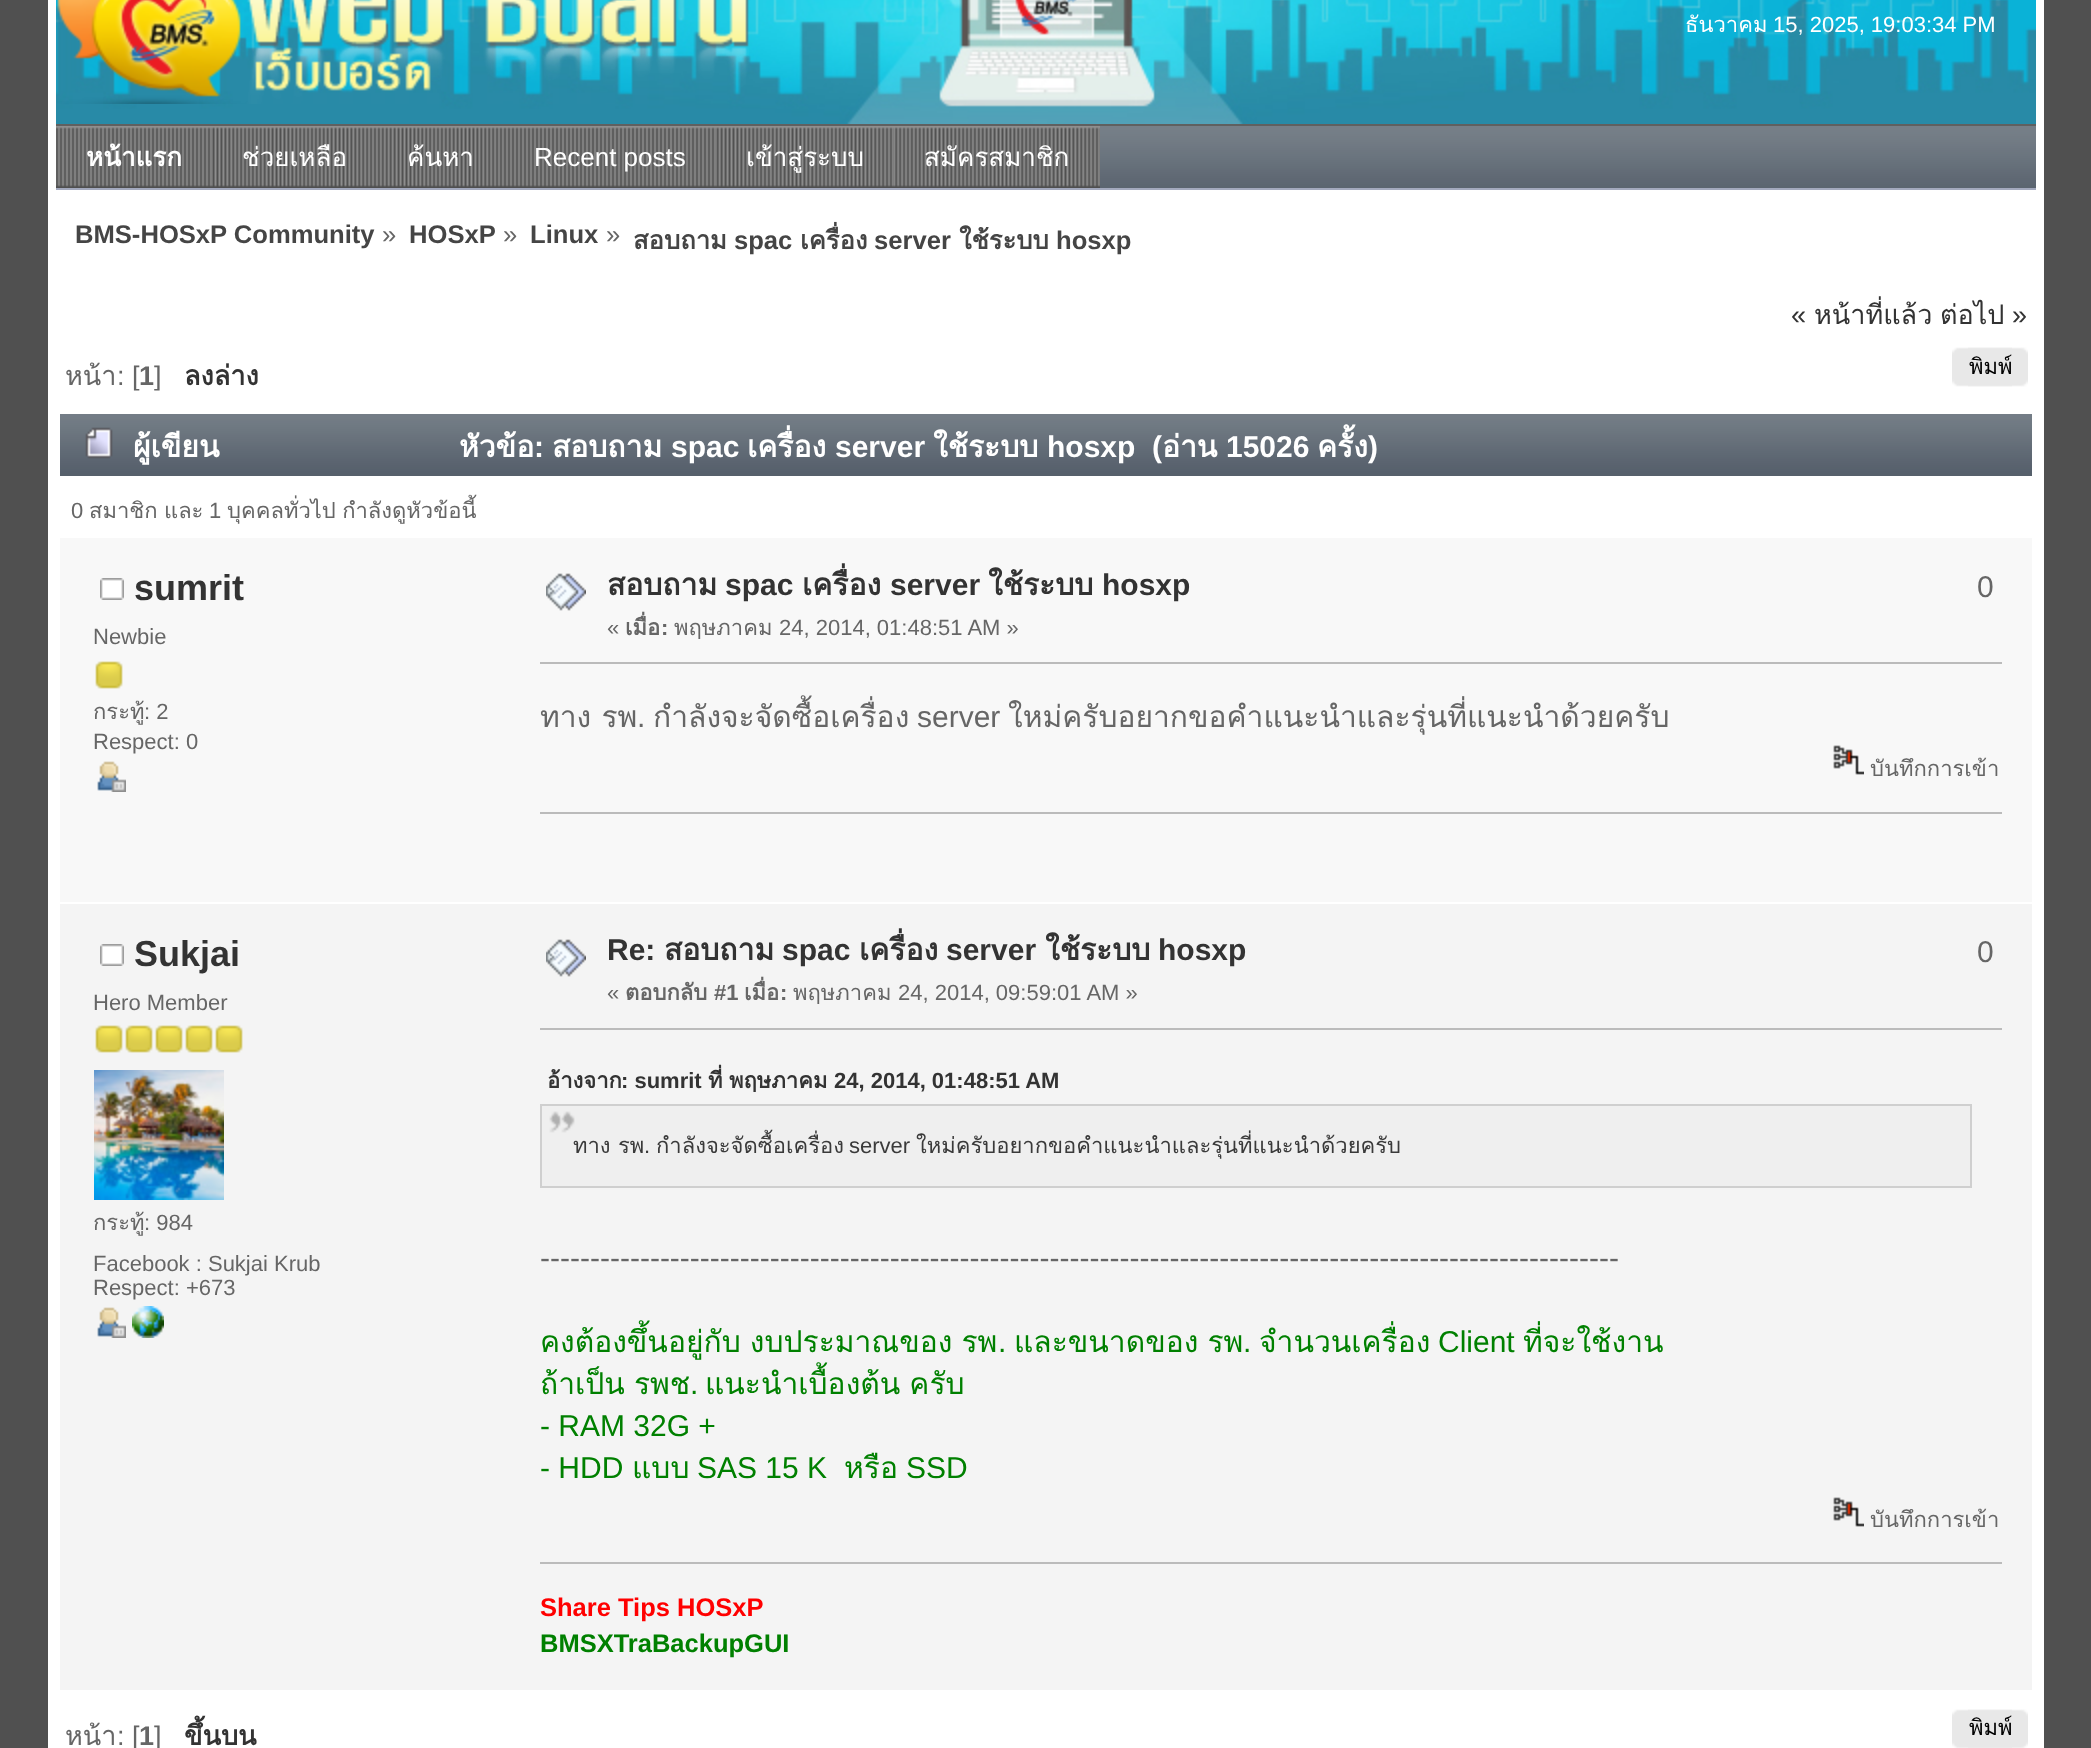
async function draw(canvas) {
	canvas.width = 2091;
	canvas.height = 1748;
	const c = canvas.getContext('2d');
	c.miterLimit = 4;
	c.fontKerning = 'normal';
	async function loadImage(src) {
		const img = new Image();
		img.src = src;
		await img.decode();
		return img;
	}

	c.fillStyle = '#505050';
	c.fillRect(0, 0, 2091, 1748);
	c.fillStyle = '#fff';
	c.fillRect(2036, 0, 8, 1748);
	c.fillRect(48, 0, 8, 1748);
	c.drawImage(await loadImage('img1.png'), 56, 0, 1980, 124);
	c.drawImage(await loadImage('img2.png'), 57, 0, 692, 104);
	c.font = '22px Loma';
	c.fillText('ธันวาคม', 1685, 32);
	c.font = '22px Liberation Sans';
	c.fillText('15, 2025, 19:03:34 PM', 1773, 32);
	c.drawImage(await loadImage('img3.png'), 1100, 126, 936, 62);
	c.fillStyle = '#606060';
	c.fillRect(56, 124, 1980, 2);
	c.drawImage(await loadImage('img4.png'), 56, 126, 156, 62);
	c.font = 'bold 26px Loma';
	c.fillStyle = '#fff';
	c.fillText('หน้าแรก', 86, 166);
	c.drawImage(await loadImage('img5.png'), 212, 126, 166, 62);
	c.font = '26px Loma';
	c.fillText('ช่วยเหลือ', 242, 166);
	c.drawImage(await loadImage('img6.png'), 378, 126, 126, 62);
	c.fillText('ค้นหา', 407, 166);
	c.drawImage(await loadImage('img7.png'), 504, 126, 212, 62);
	c.font = '26px Liberation Sans';
	c.fillText('Recent posts', 534, 166);
	c.drawImage(await loadImage('img8.png'), 716, 126, 178, 62);
	c.font = '26px Loma';
	c.fillText('เข้าสู่ระบบ', 746, 166);
	c.drawImage(await loadImage('img9.png'), 894, 126, 206, 62);
	c.fillText('สมัครสมาชิก', 924, 166);
	c.fillRect(56, 190, 1980, 1558);
	c.fillStyle = '#a3a9be';
	c.fillRect(56, 188, 1980, 2);
	c.font = 'bold 25.6px Liberation Sans';
	c.fillStyle = '#454545';
	c.fillText('BMS-HOSxP Community', 75, 243);
	c.font = '25.6px Liberation Sans';
	c.fillStyle = '#666';
	c.fillText('»', 382, 243);
	c.font = 'bold 25.6px Liberation Sans';
	c.fillStyle = '#454545';
	c.fillText('HOSxP', 409, 243);
	c.font = '25.6px Liberation Sans';
	c.fillStyle = '#666';
	c.fillText('»', 503, 243);
	c.font = 'bold 25.6px Liberation Sans';
	c.fillStyle = '#454545';
	c.fillText('Linux', 530, 243);
	c.font = '25.6px Liberation Sans';
	c.fillStyle = '#666';
	c.fillText('»', 606, 243);
	c.font = 'bold 25.6px Loma';
	c.fillStyle = '#454545';
	c.fillText('สอบถาม', 633, 249);
	c.font = 'bold 25.6px Liberation Sans';
	c.fillText('spac', 734, 249);
	c.font = 'bold 25.6px Loma';
	c.fillText('เครื่อง', 800, 249);
	c.font = 'bold 25.6px Liberation Sans';
	c.fillText('server', 874, 249);
	c.font = 'bold 25.6px Loma';
	c.fillText('ใช้ระบบ', 959, 249);
	c.font = 'bold 25.6px Liberation Sans';
	c.fillText('hosxp', 1056, 249);
	c.font = '27px Liberation Sans';
	c.fillStyle = '#333';
	c.fillText('«', 1791, 324);
	c.font = '27px Loma';
	c.fillText('หน้าที่แล้ว', 1814, 324);
	c.fillText('ต่อไป', 1940, 324);
	c.font = '27px Liberation Sans';
	c.fillText('»', 2012, 324);
	c.font = '27px Loma';
	c.fillStyle = '#666';
	c.fillText('หน้า', 65, 385);
	c.font = '27px Liberation Sans';
	c.fillText(': [', 117, 385);
	c.font = 'bold 27px Liberation Sans';
	c.fillText('1', 139, 385);
	c.font = '27px Liberation Sans';
	c.fillText(']', 154, 385);
	c.font = 'bold 27px Loma';
	c.fillStyle = '#333';
	c.fillText('ลงล่าง', 184, 385);
	c.drawImage(await loadImage('img10.png'), 1952, 347, 60, 40);
	c.drawImage(await loadImage('img11.png'), 1968, 347, 60, 40);
	c.font = '22px Loma';
	c.fillStyle = '#000';
	c.fillText('พิมพ์', 1969, 374);
	c.drawImage(await loadImage('img12.png'), 60, 414, 1972, 62);
	c.drawImage(await loadImage('img13.png'), 85, 427, 28, 32);
	c.font = 'bold 30px Loma';
	c.fillStyle = '#fff';
	c.fillText('ผู้เขียน', 133, 457);
	c.fillText('หัวข้อ', 459, 457);
	c.font = 'bold 30px Liberation Sans';
	c.fillText(':', 534, 457);
	c.font = 'bold 30px Loma';
	c.fillText('สอบถาม', 552, 457);
	c.font = 'bold 30px Liberation Sans';
	c.fillText('spac', 671, 457);
	c.font = 'bold 30px Loma';
	c.fillText('เครื่อง', 747, 457);
	c.font = 'bold 30px Liberation Sans';
	c.fillText('server', 835, 457);
	c.font = 'bold 30px Loma';
	c.fillText('ใช้ระบบ', 933, 457);
	c.font = 'bold 30px Liberation Sans';
	c.fillText('hosxp  (', 1047, 457);
	c.font = 'bold 30px Loma';
	c.fillText('อ่าน', 1162, 457);
	c.font = 'bold 30px Liberation Sans';
	c.fillText('15026', 1226, 457);
	c.font = 'bold 30px Loma';
	c.fillText('ครั้ง', 1317, 457);
	c.font = 'bold 30px Liberation Sans';
	c.fillText(')', 1368, 457);
	c.font = '22px Liberation Sans';
	c.fillStyle = '#666';
	c.fillText('0', 71, 518);
	c.wordSpacing = '-1px';
	c.font = '22px Loma';
	c.fillText('สมาชิก และ', 89, 518);
	c.wordSpacing = '0px';
	c.font = '22px Liberation Sans';
	c.fillText('1', 209, 518);
	c.wordSpacing = '-1px';
	c.font = '22px Loma';
	c.fillText('บุคคลทั่วไป กำลังดูหัวข้อนี้', 227, 518);
	c.fillStyle = '#f8f8f8';
	c.fillRect(60, 538, 1972, 364);
	c.drawImage(await loadImage('img14.png'), 100, 578, 24, 22);
	c.wordSpacing = '0px';
	c.font = 'bold 36px Liberation Sans';
	c.fillStyle = '#333';
	c.fillText('sumrit', 134, 600);
	c.font = '22px Liberation Sans';
	c.fillStyle = '#666';
	c.fillText('Newbie', 93, 644);
	c.drawImage(await loadImage('img15.png'), 95, 661, 28, 28);
	c.font = '22px Loma';
	c.fillText('กระทู้', 93, 719);
	c.font = '22px Liberation Sans';
	c.fillText(': 2', 144, 719);
	c.fillText('Respect: 0', 93, 749);
	c.drawImage(await loadImage('img16.png'), 97, 761, 29, 31);
	c.drawImage(await loadImage('img17.png'), 546, 573, 40, 38);
	c.font = 'bold 30px Loma';
	c.fillStyle = '#333';
	c.fillText('สอบถาม', 607, 595);
	c.font = 'bold 30px Liberation Sans';
	c.fillText('spac', 725, 595);
	c.font = 'bold 30px Loma';
	c.fillText('เครื่อง', 802, 595);
	c.font = 'bold 30px Liberation Sans';
	c.fillText('server', 890, 595);
	c.font = 'bold 30px Loma';
	c.fillText('ใช้ระบบ', 988, 595);
	c.font = 'bold 30px Liberation Sans';
	c.fillText('hosxp', 1102, 595);
	c.font = '22px Liberation Sans';
	c.fillStyle = '#666';
	c.fillText('«', 607, 635);
	c.font = 'bold 22px Loma';
	c.fillText('เมื่อ', 625, 635);
	c.font = 'bold 22px Liberation Sans';
	c.fillText(':', 661, 635);
	c.font = '22px Loma';
	c.fillText('พฤษภาคม', 674, 635);
	c.font = '22px Liberation Sans';
	c.fillText('24, 2014, 01:48:51 AM »', 779, 635);
	c.font = '30px Liberation Sans';
	c.fillText('0', 1977, 597);
	c.fillStyle = '#bbb';
	c.fillRect(540, 662, 1462, 2);
	c.font = '30px Loma';
	c.fillStyle = '#666';
	c.fillText('ทาง รพ', 540, 727);
	c.font = '30px Liberation Sans';
	c.fillText('.', 637, 727);
	c.font = '30px Loma';
	c.fillText('กำลังจะจัดซื้อเครื่อง', 653, 727);
	c.font = '30px Liberation Sans';
	c.fillText('server', 917, 727);
	c.font = '30px Loma';
	c.fillText('ใหม่ครับอยากขอคำแนะนำและรุ่นที่แนะนำด้วยครับ', 1008, 727);
	c.drawImage(await loadImage('img18.png'), 1833, 745, 31, 30);
	c.font = '22px Loma';
	c.fillText('บันทึกการเข้า', 1870, 776);
	c.fillStyle = '#bbb';
	c.fillRect(540, 812, 1462, 2);
	c.fillStyle = '#f4f4f4';
	c.fillRect(60, 904, 1972, 786);
	c.drawImage(await loadImage('img19.png'), 100, 944, 24, 22);
	c.font = 'bold 36px Liberation Sans';
	c.fillStyle = '#333';
	c.fillText('Sukjai', 134, 966);
	c.font = '22px Liberation Sans';
	c.fillStyle = '#666';
	c.fillText('Hero Member', 93, 1010);
	c.drawImage(await loadImage('img20.png'), 95, 1025, 28, 28);
	c.drawImage(await loadImage('img20.png'), 125, 1025, 28, 28);
	c.drawImage(await loadImage('img20.png'), 155, 1025, 28, 28);
	c.drawImage(await loadImage('img20.png'), 185, 1025, 28, 28);
	c.drawImage(await loadImage('img20.png'), 215, 1025, 28, 28);
	c.drawImage(await loadImage('img21.png'), 94, 1070, 130, 130);
	c.font = '22px Loma';
	c.fillText('กระทู้', 93, 1230);
	c.font = '22px Liberation Sans';
	for (const [text, x, y] of [
		[': 984', 144, 1230],
		['Facebook : Sukjai Krub', 93, 1271],
		['Respect: +673', 93, 1295],
	]) {
		c.fillText(text, x, y);
	}
	c.drawImage(await loadImage('img22.png'), 97, 1307, 29, 31);
	c.drawImage(await loadImage('img23.png'), 132, 1306, 32, 32);
	c.drawImage(await loadImage('img24.png'), 546, 939, 40, 38);
	c.font = 'bold 30px Liberation Sans';
	c.fillStyle = '#333';
	c.fillText('Re:', 607, 960);
	c.font = 'bold 30px Loma';
	c.fillText('สอบถาม', 664, 960);
	c.font = 'bold 30px Liberation Sans';
	c.fillText('spac', 782, 960);
	c.font = 'bold 30px Loma';
	c.fillText('เครื่อง', 859, 960);
	c.font = 'bold 30px Liberation Sans';
	c.fillText('server', 946, 960);
	c.font = 'bold 30px Loma';
	c.fillText('ใช้ระบบ', 1045, 960);
	c.font = 'bold 30px Liberation Sans';
	c.fillText('hosxp', 1158, 960);
	c.font = '22px Liberation Sans';
	c.fillStyle = '#666';
	c.fillText('«', 607, 1000);
	c.font = 'bold 22px Loma';
	c.fillText('ตอบกลับ', 625, 1000);
	c.font = 'bold 22px Liberation Sans';
	c.fillText('#1', 714, 1000);
	c.font = 'bold 22px Loma';
	c.fillText('เมื่อ', 744, 1000);
	c.font = 'bold 22px Liberation Sans';
	c.fillText(':', 780, 1000);
	c.font = '22px Loma';
	c.fillText('พฤษภาคม', 793, 1000);
	c.font = '22px Liberation Sans';
	c.fillText('24, 2014, 09:59:01 AM »', 898, 1000);
	c.font = '30px Liberation Sans';
	c.fillText('0', 1977, 962);
	c.fillStyle = '#bbb';
	c.fillRect(540, 1028, 1462, 2);
	c.save();
	c.beginPath();
	c.rect(540, 1026, 1492, 470);
	c.clip();
	c.font = 'bold 22px Loma';
	c.fillStyle = '#333';
	c.fillText('อ้างจาก', 547, 1088);
	c.restore();
	c.font = 'bold 22px Liberation Sans';
	c.fillStyle = '#333';
	c.fillText(': sumrit', 621, 1088);
	c.font = 'bold 22px Loma';
	c.fillText('ที่', 708, 1088);
	c.fillText('พฤษภาคม', 729, 1088);
	c.font = 'bold 22px Liberation Sans';
	c.fillText('24, 2014, 01:48:51 AM', 834, 1088);
	c.fillStyle = '#efefef';
	c.fillRect(542, 1106, 1428, 80);
	c.drawImage(await loadImage('img25.png'), 549, 1111, 26, 22);
	c.strokeStyle = '#cfcfcf';
	c.lineWidth = 2;
	c.strokeRect(541, 1105, 1430, 82);
	c.font = '22px Loma';
	c.fillStyle = '#3a3a3a';
	c.fillText('ทาง รพ', 573, 1153);
	c.font = '22px Liberation Sans';
	c.fillText('.', 644, 1153);
	c.font = '22px Loma';
	c.fillText('กำลังจะจัดซื้อเครื่อง', 656, 1153);
	c.font = '22px Liberation Sans';
	c.fillText('server', 849, 1153);
	c.font = '22px Loma';
	c.fillText('ใหม่ครับอยากขอคำแนะนำและรุ่นที่แนะนำด้วยครับ', 916, 1153);
	c.font = '30px Liberation Sans';
	c.fillStyle = '#666';
	c.fillText('------------------------------------------------------------------------------------------------------------', 540, 1268);
	c.wordSpacing = '-1px';
	c.font = '30px Loma';
	c.fillStyle = '#008000';
	c.fillText('คงต้องขึ้นอยู่กับ งบประมาณของ รพ', 540, 1352);
	c.wordSpacing = '0px';
	c.font = '30px Liberation Sans';
	c.fillText('.', 998, 1352);
	c.wordSpacing = '-1px';
	c.font = '30px Loma';
	c.fillText('และขนาดของ รพ', 1014, 1352);
	c.wordSpacing = '0px';
	c.font = '30px Liberation Sans';
	c.fillText('.', 1243, 1352);
	c.font = '30px Loma';
	c.fillText('จำนวนเครื่อง', 1259, 1352);
	c.font = '30px Liberation Sans';
	c.fillText('Client', 1438, 1352);
	c.font = '30px Loma';
	c.fillText('ที่จะใช้งาน', 1523, 1352);
	c.save();
	c.beginPath();
	c.rect(540, 1026, 1492, 470);
	c.clip();
	c.wordSpacing = '-1px';
	c.fillText('ถ้าเป็น รพช', 540, 1394);
	c.restore();
	c.font = '30px Liberation Sans';
	c.fillText('.', 690, 1394);
	c.wordSpacing = '-1px';
	c.font = '30px Loma';
	c.fillText('แนะนำเบื้องต้น ครับ', 705, 1394);
	c.wordSpacing = '0px';
	c.font = '30px Liberation Sans';
	c.fillText('- RAM 32G +', 540, 1436);
	c.fillText('- HDD', 540, 1478);
	c.font = '30px Loma';
	c.fillText('แบบ', 632, 1478);
	c.font = '30px Liberation Sans';
	c.fillText('SAS 15 K', 697, 1478);
	c.font = '30px Loma';
	c.fillText('หรือ', 844, 1478);
	c.font = '30px Liberation Sans';
	c.fillText('SSD', 906, 1478);
	c.drawImage(await loadImage('img26.png'), 1833, 1497, 31, 30);
	c.font = '22px Loma';
	c.fillStyle = '#666';
	c.fillText('บันทึกการเข้า', 1870, 1527);
	c.fillStyle = '#bbb';
	c.fillRect(540, 1562, 1462, 2);
	c.font = 'bold 25.5px Liberation Sans';
	c.fillStyle = '#f00';
	c.fillText('Share Tips HOSxP', 540, 1616);
	c.fillStyle = '#008000';
	c.fillText('BMSXTraBackupGUI', 540, 1652);
	c.font = '27px Loma';
	c.fillStyle = '#666';
	c.fillText('หน้า', 65, 1745);
	c.font = '27px Liberation Sans';
	c.fillText(': [', 117, 1745);
	c.font = 'bold 27px Liberation Sans';
	c.fillText('1', 139, 1745);
	c.font = '27px Liberation Sans';
	c.fillText(']', 154, 1745);
	c.font = 'bold 27px Loma';
	c.fillStyle = '#333';
	c.fillText('ขึ้นบน', 184, 1745);
	c.drawImage(await loadImage('img27.png'), 1952, 1709, 60, 39);
	c.drawImage(await loadImage('img28.png'), 1968, 1709, 60, 39);
	c.font = '22px Loma';
	c.fillStyle = '#000';
	c.fillText('พิมพ์', 1969, 1735);
}

draw(document.querySelector('canvas'));
